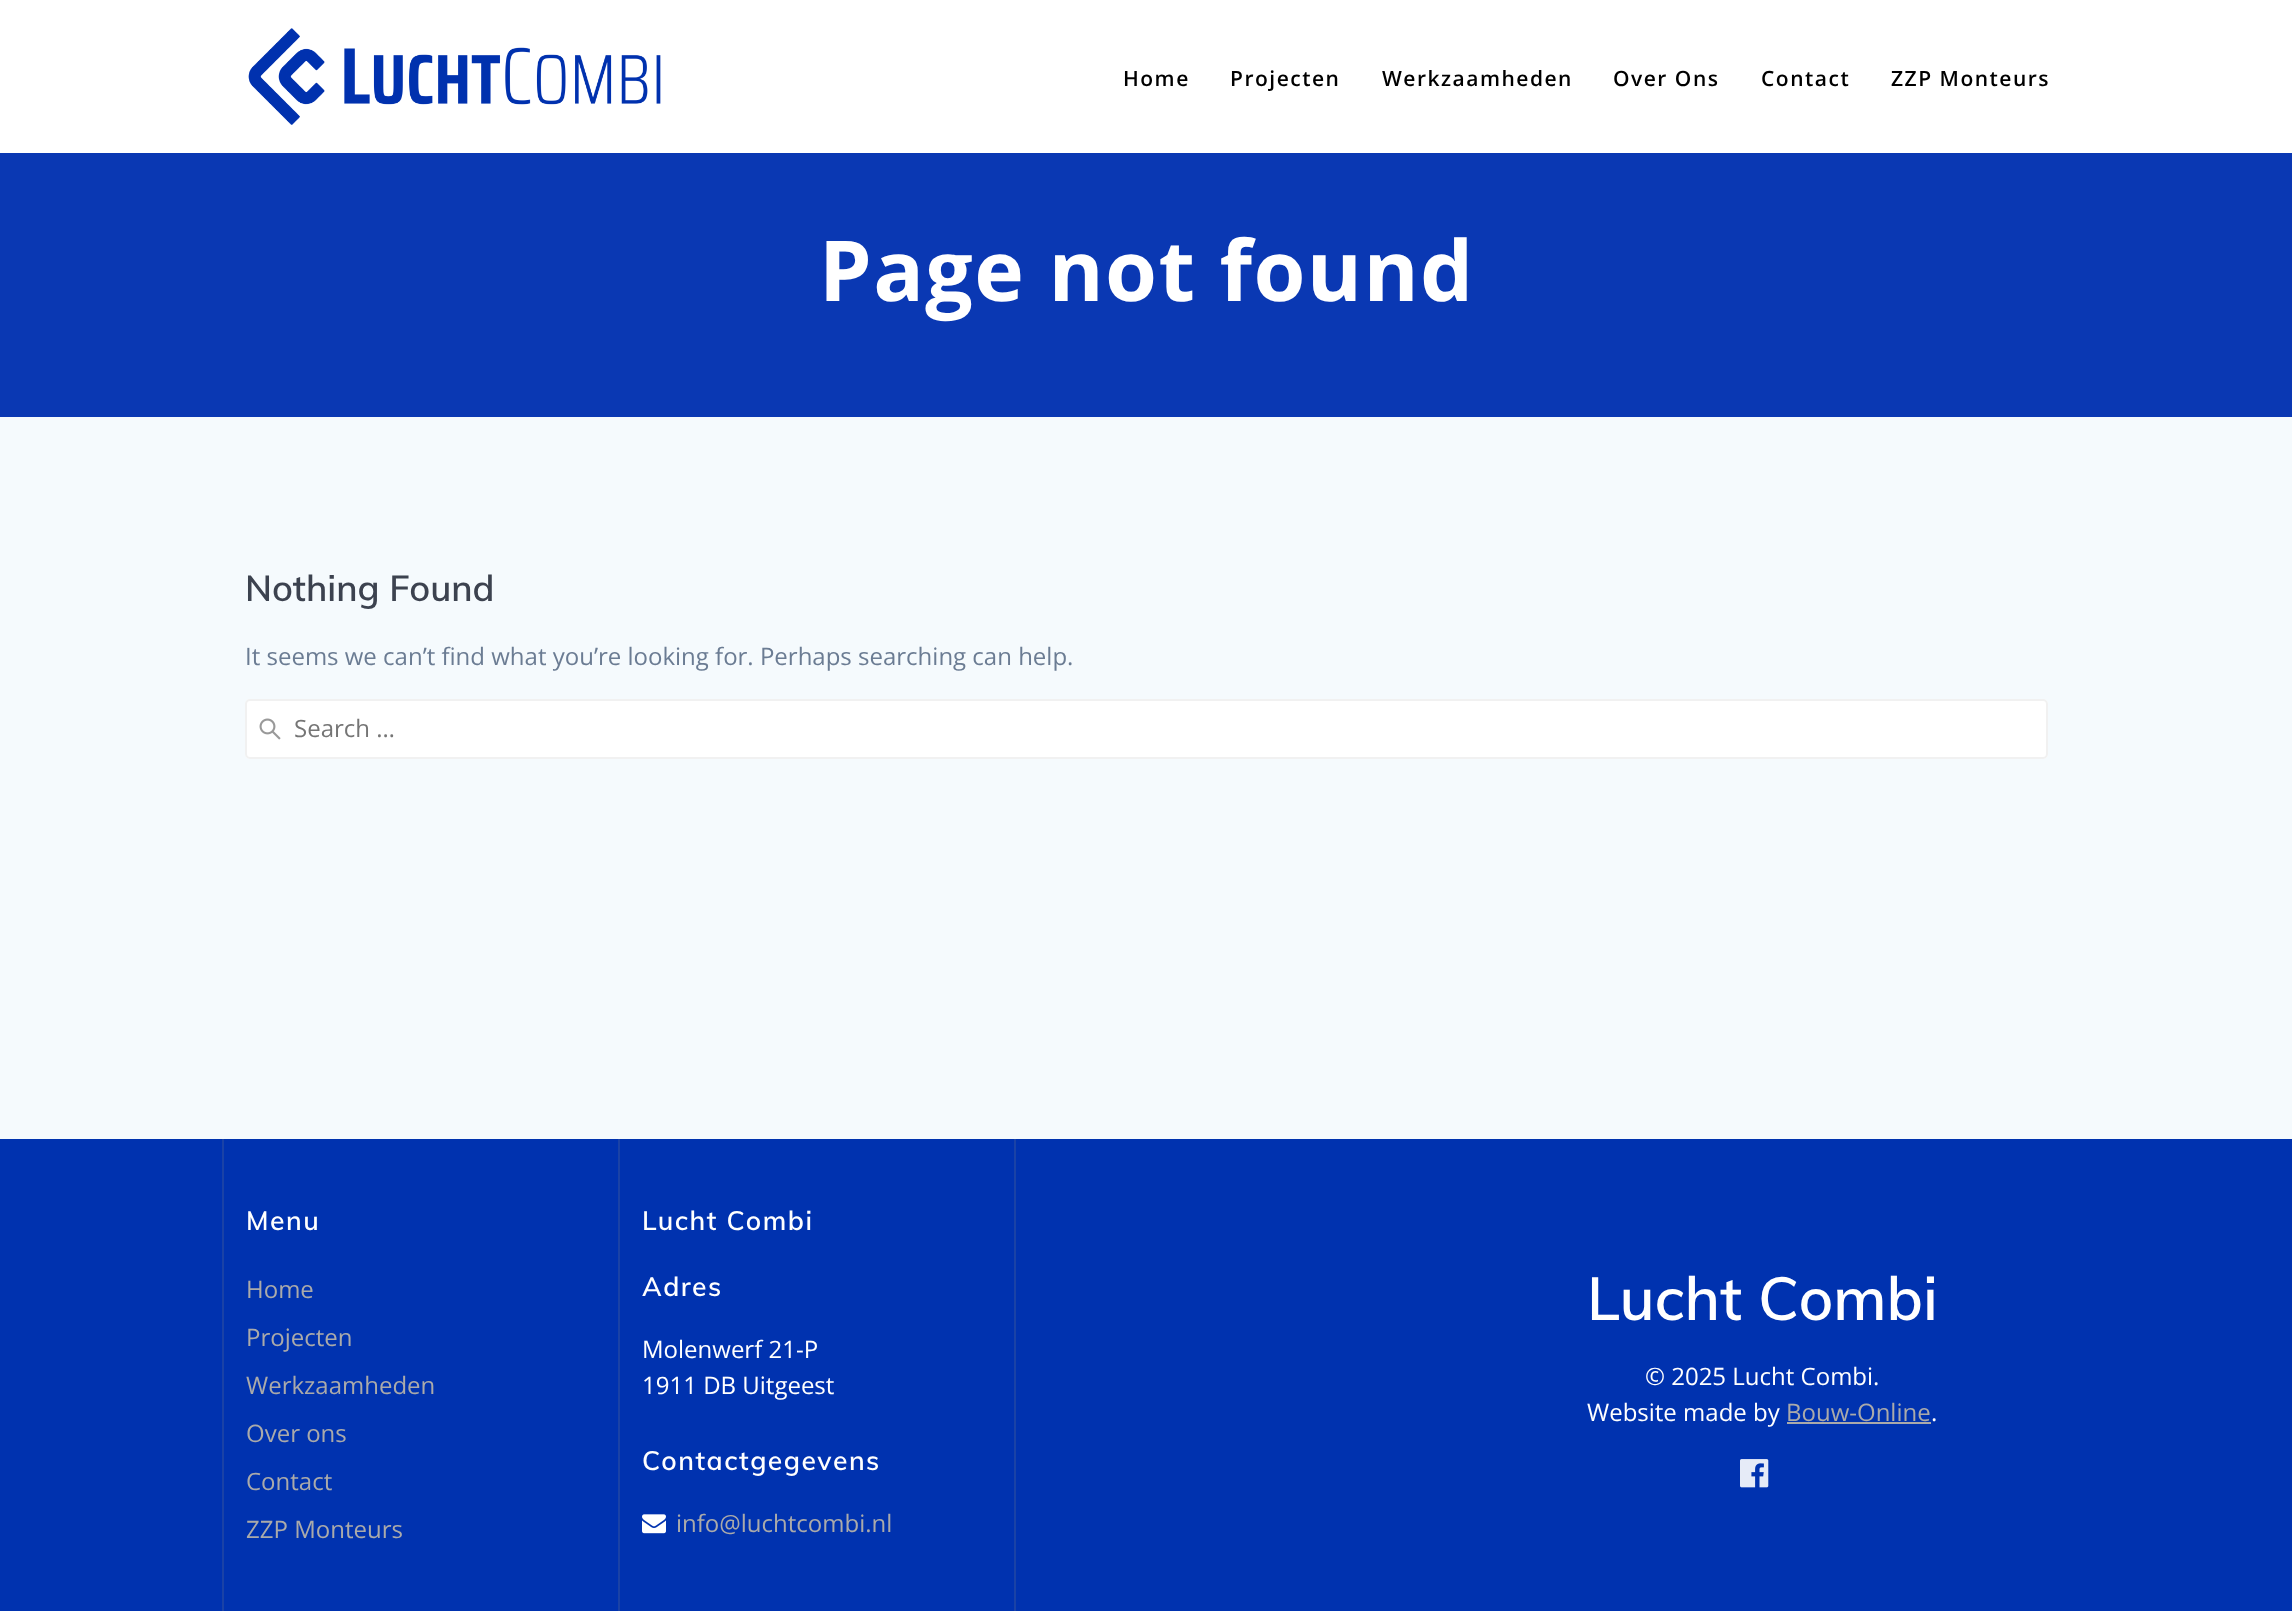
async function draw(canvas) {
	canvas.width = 2292;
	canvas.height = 1611;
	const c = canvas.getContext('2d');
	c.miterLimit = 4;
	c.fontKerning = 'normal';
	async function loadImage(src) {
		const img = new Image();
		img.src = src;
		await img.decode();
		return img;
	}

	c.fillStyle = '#0a38b3';
	c.fillRect(0, 0, 2292, 1611);
	c.fillStyle = '#fff';
	c.fillRect(0, 0, 2292, 153);
	c.drawImage(await loadImage('img1.png'), 248, 28, 413, 97);
	c.letterSpacing = '1.5px';
	c.font = '600 21px Open Sans';
	c.fillStyle = '#000';
	for (const [text, x, y] of [
		['Home', 1123, 86],
		['Projecten', 1230, 86],
		['Werkzaamheden', 1382, 86],
		['Over Ons', 1613, 86],
		['Contact', 1761, 86],
		['ZZP Monteurs', 1891, 86],
	]) {
		c.fillText(text, x, y);
	}
	c.letterSpacing = '1.4px';
	c.font = 'bold 84px Open Sans';
	c.fillStyle = '#fff';
	c.fillText('Page not found', 819, 301);
	c.fillStyle = '#f5fafd';
	c.fillRect(0, 417, 2292, 722);
	c.letterSpacing = '0px';
	c.font = '600 36px Muli';
	c.fillStyle = '#3c424f';
	c.fillText('Nothing Found', 245, 601);
	c.font = '24px Open Sans';
	c.fillStyle = '#6b7c93';
	c.fillText('It seems we can’t find what you’re looking for. Perhaps searching can help.', 245, 665);
	c.fillStyle = '#fff';
	c.beginPath();
	c.roundRect(245, 699, 1803, 60, 5);
	c.fill();
	c.drawImage(await loadImage('img2.png'), 259, 718, 22, 22);
	c.beginPath();
	c.roundRect(246, 700, 1801, 58, 4);
	c.strokeStyle = '#f1f1f1';
	c.lineWidth = 2;
	c.stroke();
	c.fillStyle = '#757575';
	c.fillText('Search …', 294, 737);
	c.fillStyle = '#0032af';
	c.fillRect(0, 1139, 2292, 472);
	c.fillStyle = '#1a42a6';
	c.fillRect(222, 1139, 2, 472);
	c.letterSpacing = '1.5px';
	c.font = '600 26.5px Muli';
	c.fillStyle = '#fff';
	c.fillText('Menu', 246, 1230);
	c.letterSpacing = '0px';
	c.font = '24px Open Sans';
	c.fillStyle = '#aaa';
	for (const [text, x, y] of [
		['Home', 246, 1298],
		['Projecten', 246, 1346],
		['Werkzaamheden', 246, 1394],
		['Over ons', 246, 1442],
		['Contact', 246, 1490],
		['ZZP Monteurs', 246, 1538],
	]) {
		c.fillText(text, x, y);
	}
	c.fillStyle = '#1a42a6';
	c.fillRect(618, 1139, 2, 472);
	c.letterSpacing = '1.5px';
	c.font = '600 26.5px Muli';
	c.fillStyle = '#fff';
	c.fillText('Lucht Combi', 642, 1230);
	c.fillText('Adres', 642, 1296);
	c.letterSpacing = '0px';
	c.font = '24px Open Sans';
	c.fillText('Molenwerf 21-P', 642, 1358);
	c.fillText('1911 DB Uitgeest', 642, 1394);
	c.letterSpacing = '1.5px';
	c.font = '600 26.5px Muli';
	c.fillText('Contactgegevens', 642, 1470);
	c.drawImage(await loadImage('img3.png'), 642, 1514, 24, 20);
	c.letterSpacing = '0px';
	c.font = '24px Open Sans';
	c.fillStyle = '#aaa';
	c.fillText('info@luchtcombi.nl', 676, 1532);
	c.fillStyle = '#1a42a6';
	c.fillRect(1014, 1139, 2, 472);
	c.font = '600 60px Muli';
	c.fillStyle = '#fff';
	c.fillText('Lucht Combi', 1587, 1320);
	c.font = '24px Open Sans';
	c.fillText('© 2025 Lucht Combi.', 1645, 1385);
	c.fillText('Website made by', 1587, 1421);
	c.fillStyle = '#aaa';
	c.fillText('Bouw-Online', 1786, 1421);
	c.fillRect(1787, 1422, 144, 2);
	c.fillStyle = '#fff';
	c.fillText('.', 1931, 1421);
	c.drawImage(await loadImage('img4.png'), 1740, 1459, 29, 29);
}

draw(document.querySelector('canvas'));
